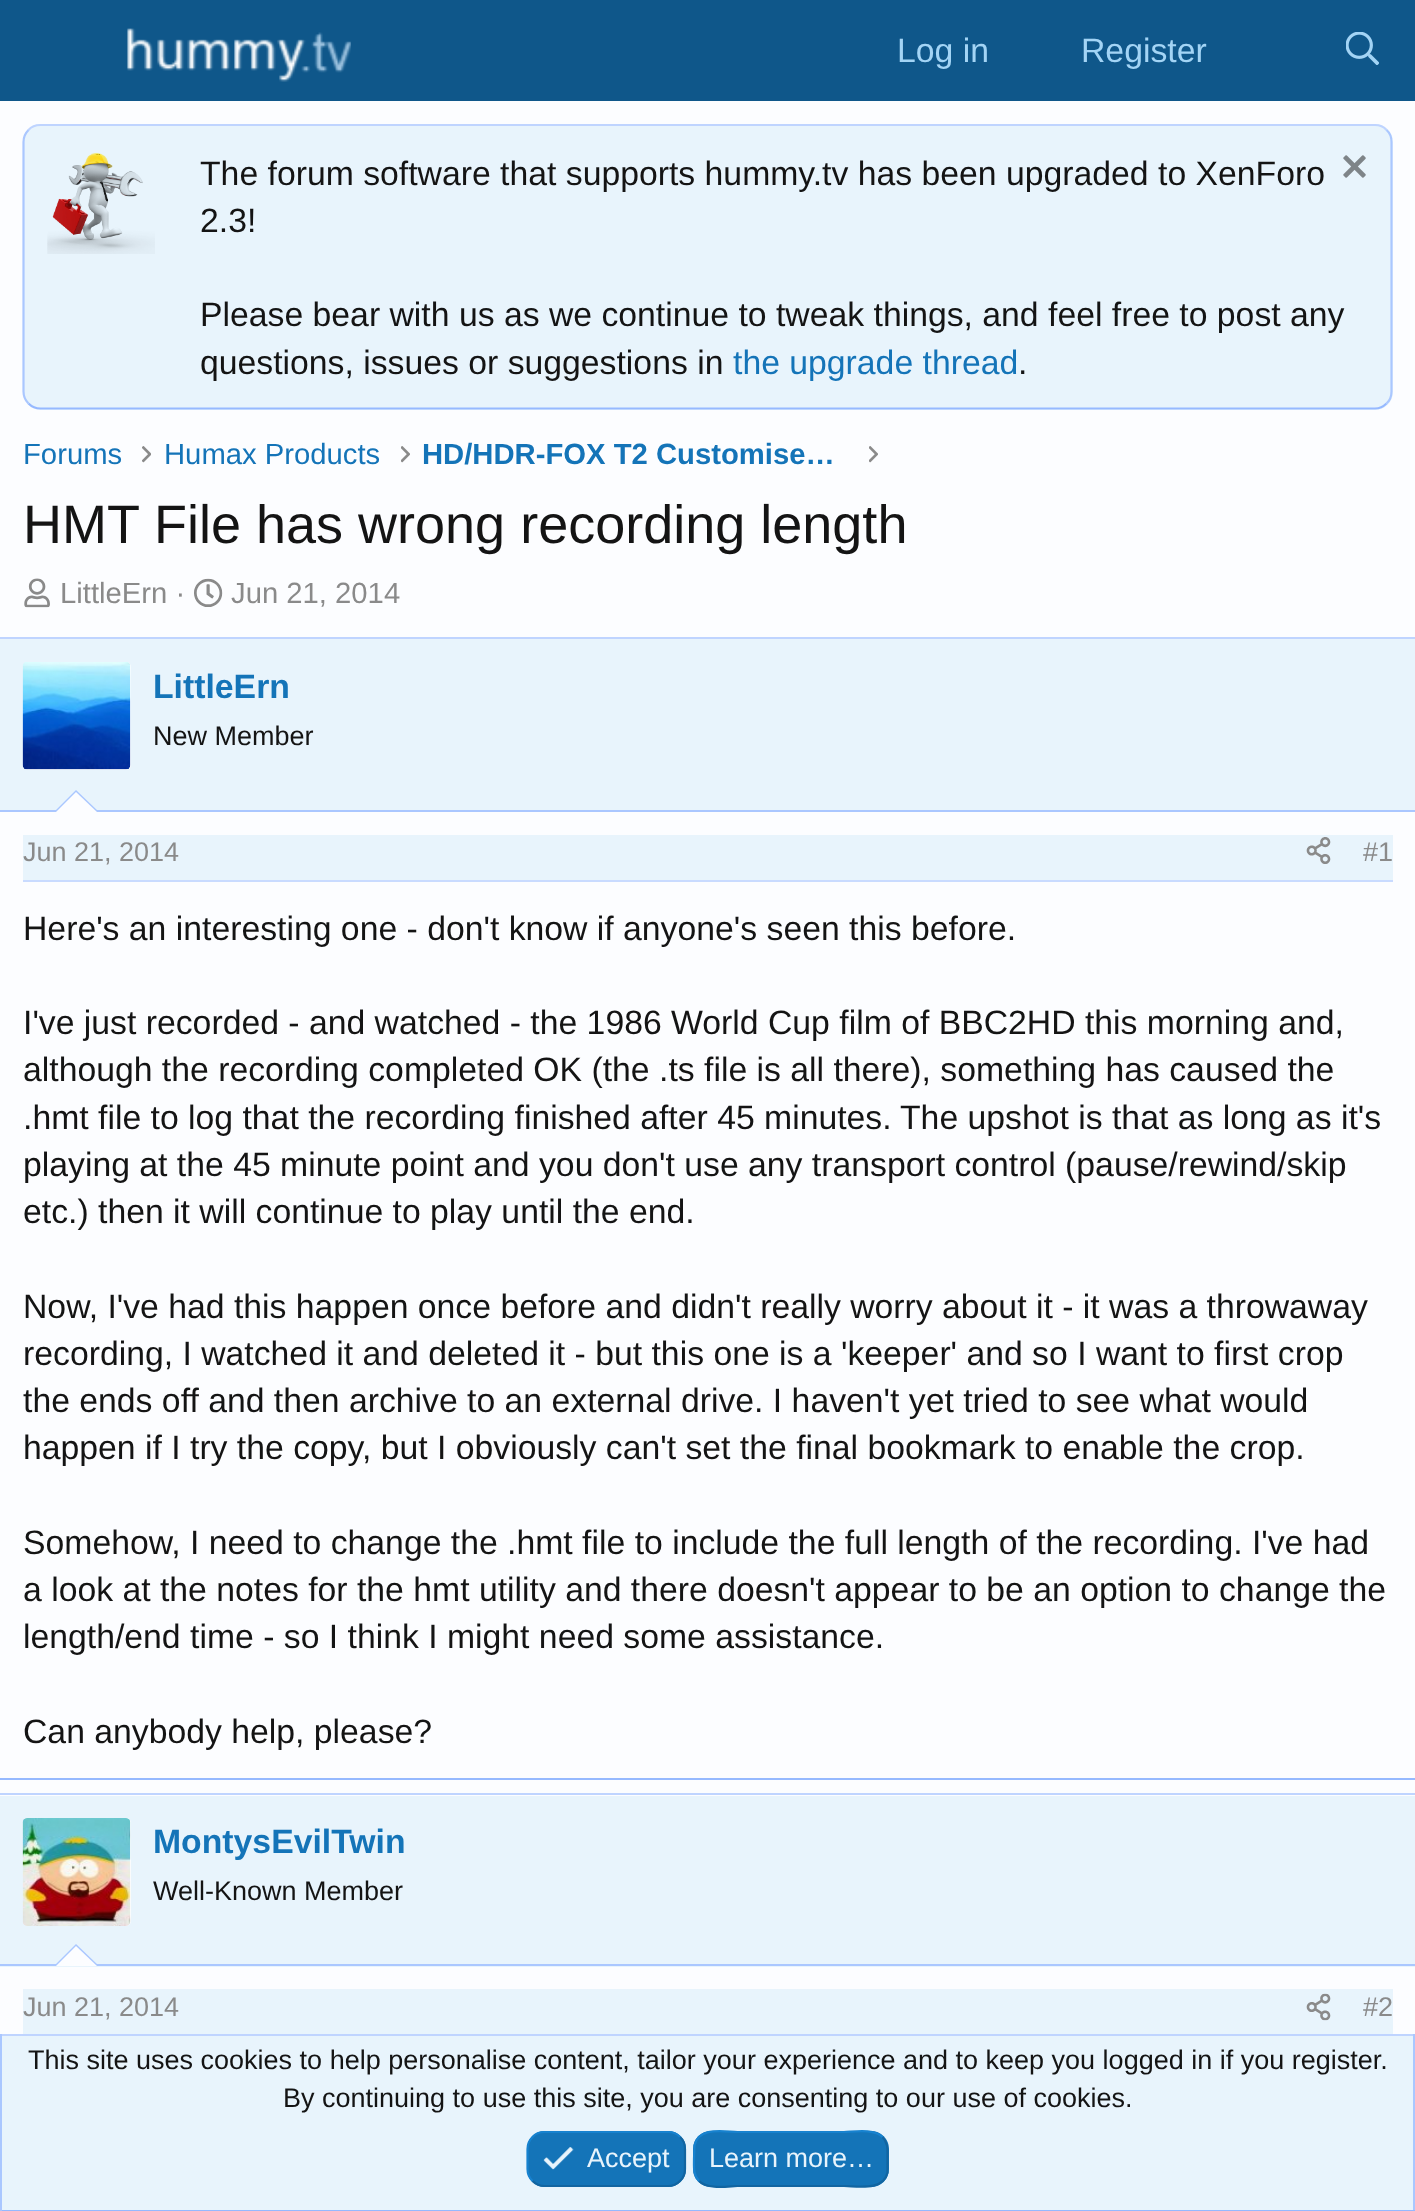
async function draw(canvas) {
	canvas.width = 1415;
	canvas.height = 2211;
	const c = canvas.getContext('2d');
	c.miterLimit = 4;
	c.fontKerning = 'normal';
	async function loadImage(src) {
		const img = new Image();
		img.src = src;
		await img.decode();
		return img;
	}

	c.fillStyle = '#fcfdff';
	c.fillRect(0, 0, 1415, 2211);
	c.fillStyle = '#0f578a';
	c.fillRect(0, 0, 1415, 101);
	c.drawImage(await loadImage('img1.png'), 127, 28, 224, 54);
	c.font = '33.75px Liberation Sans';
	c.fillStyle = '#a3d4f5';
	c.fillText('Log in', 897, 62);
	c.fillText('Register', 1081, 62);
	c.drawImage(await loadImage('img2.png'), 1346, 32, 33, 33);
	c.fillStyle = '#e8f4fc';
	c.beginPath();
	c.roundRect(23, 124, 1370, 286, 18);
	c.fill();
	c.beginPath();
	c.moveTo(28.5, 130);
	c.bezierCurveTo(31.5, 126.5, 36, 125, 40.5, 125);
	c.lineTo(1375, 125);
	c.bezierCurveTo(1379, 125, 1383.5, 126.5, 1386.5, 130);
	c.strokeStyle = '#bfd4ff';
	c.lineWidth = 2.2;
	c.stroke();
	c.beginPath();
	c.moveTo(1386.5, 130);
	c.bezierCurveTo(1390, 133, 1391.5, 137.5, 1391.5, 142);
	c.lineTo(1391.5, 391.5);
	c.bezierCurveTo(1391.5, 396, 1390, 400.5, 1386.5, 403.5);
	c.strokeStyle = '#aac7ff';
	c.stroke();
	c.beginPath();
	c.moveTo(1386.5, 403.5);
	c.bezierCurveTo(1383.5, 406.5, 1379, 408.5, 1375, 408.5);
	c.lineTo(40.5, 408.5);
	c.bezierCurveTo(36, 408.5, 31.5, 406.5, 28.5, 403.5);
	c.strokeStyle = '#96b9ff';
	c.stroke();
	c.beginPath();
	c.moveTo(28.5, 403.5);
	c.bezierCurveTo(25.5, 400.5, 23.5, 396, 23.5, 391.5);
	c.lineTo(23.5, 142);
	c.bezierCurveTo(23.5, 137.5, 25.5, 133, 28.5, 130);
	c.strokeStyle = '#aac7ff';
	c.stroke();
	c.drawImage(await loadImage('img3.png'), 47, 152, 108, 102);
	c.fillStyle = '#141414';
	c.fillText('The forum software that supports hummy.tv has been upgraded to XenForo', 200, 185);
	c.drawImage(await loadImage('img4.png'), 1343, 155, 23, 23);
	for (const [text, x, y] of [
		['2.3!', 200, 232],
		['Please bear with us as we continue to tweak things, and feel free to post any', 200, 326],
		['questions, issues or suggestions in', 200, 374],
	]) {
		c.fillText(text, x, y);
	}
	c.fillStyle = '#1474b8';
	c.fillText('the upgrade thread', 733, 374);
	c.fillStyle = '#141414';
	c.fillText('.', 1018, 374);
	c.font = '29.25px Liberation Sans';
	c.fillStyle = '#1474b8';
	c.fillText('Forums', 23, 464);
	c.drawImage(await loadImage('img5.png'), 142, 446, 9, 17);
	c.fillText('Humax Products', 164, 464);
	c.drawImage(await loadImage('img6.png'), 401, 446, 9, 17);
	c.font = 'bold 29.25px Liberation Sans';
	c.fillText('HD/HDR-FOX T2 Customise…', 422, 464);
	c.drawImage(await loadImage('img6.png'), 869, 446, 9, 17);
	c.font = '54px Liberation Sans';
	c.fillStyle = '#141414';
	c.fillText('HMT File has wrong recording length', 23, 543);
	c.drawImage(await loadImage('img7.png'), 24, 578, 26, 30);
	c.font = '29.25px Liberation Sans';
	c.fillStyle = '#8a8a8a';
	c.fillText('LittleErn ·', 60, 603);
	c.drawImage(await loadImage('img8.png'), 194, 578, 29, 29);
	c.fillText('Jun 21, 2014', 231, 603);
	for (const [x, y, w, h, color] of [
		[0, 637, 1415, 2, '#bfd4ff'],
		[0, 1778, 1415, 2, '#96b9ff'],
		[0, 639, 1415, 171, '#e8f4fc'],
		[0, 810, 1415, 2, '#aac7ff'],
	]) {
		c.fillStyle = color;
		c.fillRect(x, y, w, h);
	}
	c.fillStyle = '#fcfdff';
	c.beginPath();
	c.roundRect(23, 662, 108, 108, 5);
	c.fill();
	c.drawImage(await loadImage('img9.png'), 22, 662, 109, 108);
	c.font = 'bold 33.75px Liberation Sans';
	c.fillStyle = '#1474b8';
	c.fillText('LittleErn', 153, 698);
	c.font = '27px Liberation Sans';
	c.fillStyle = '#141414';
	c.fillText('New Member', 153, 745);
	c.fillStyle = '#aac7ff';
	c.beginPath();
	c.moveTo(99, 812);
	c.lineTo(54, 812);
	c.lineTo(76, 790);
	c.closePath();
	c.fill();
	c.fillStyle = '#fcfdff';
	c.beginPath();
	c.moveTo(97, 812);
	c.lineTo(56, 812);
	c.lineTo(76, 792);
	c.closePath();
	c.fill();
	c.fillStyle = '#e8f4fc';
	c.fillRect(23, 835, 1370, 45);
	c.fillStyle = '#c9dbff';
	c.fillRect(23, 880, 1370, 2);
	c.fillStyle = '#8a8a8a';
	c.fillText('Jun 21, 2014', 23, 861);
	c.drawImage(await loadImage('img10.png'), 1306, 837, 25, 27);
	c.fillText('#1', 1363, 861);
	c.font = '33.75px Liberation Sans';
	c.fillStyle = '#141414';
	for (const [text, x, y] of [
		['Here\'s an interesting one - don\'t know if anyone\'s seen this before.', 23, 940],
		['I\'ve just recorded - and watched - the 1986 World Cup film of BBC2HD this morning and,', 23, 1034],
		['although the recording completed OK (the .ts file is all there), something has caused the', 23, 1081],
		['.hmt file to log that the recording finished after 45 minutes.', 23, 1129],
		['The upshot is that as long as it\'s', 900, 1129],
		['playing at the 45 minute point and you don\'t use any transport control (pause/rewind/skip', 23, 1176],
		['etc.) then it will continue to play until the end.', 23, 1223],
		['Now, I\'ve had this happen once before and didn\'t really worry about it - it was a throwaway', 23, 1318],
		['recording, I watched it and deleted it - but this one is a \'keeper\' and so I want to first crop', 23, 1365],
		['the ends off and then archive to an external drive. I haven\'t yet tried to see what would', 23, 1412],
		['happen if I try the copy, but I obviously can\'t set the final bookmark to enable the crop.', 23, 1459],
		['Somehow, I need to change the .hmt file to include the full length of the recording. I\'ve had', 23, 1554],
		['a look at the notes for the hmt utility and there doesn\'t appear to be an option to change the', 23, 1601],
		['length/end time - so I think I might need some assistance.', 23, 1648],
		['Can anybody help, please?', 23, 1743],
	]) {
		c.fillText(text, x, y);
	}
	for (const [x, y, w, h, color] of [
		[0, 1793, 1415, 2, '#bfd4ff'],
		[0, 1796, 1415, 171, '#e8f4fc'],
		[0, 1964, 1415, 2, '#aac7ff'],
	]) {
		c.fillStyle = color;
		c.fillRect(x, y, w, h);
	}
	c.fillStyle = '#fcfdff';
	c.beginPath();
	c.roundRect(23, 1818, 108, 108, 5);
	c.fill();
	c.drawImage(await loadImage('img11.png'), 22, 1818, 109, 108);
	c.font = 'bold 33.75px Liberation Sans';
	c.fillStyle = '#1474b8';
	c.fillText('MontysEvilTwin', 153, 1853);
	c.font = '27px Liberation Sans';
	c.fillStyle = '#141414';
	c.fillText('Well-Known Member', 153, 1900);
	c.fillStyle = '#aac7ff';
	c.beginPath();
	c.moveTo(99, 1966);
	c.lineTo(54, 1966);
	c.lineTo(76, 1944);
	c.closePath();
	c.fill();
	c.fillStyle = '#fcfdff';
	c.beginPath();
	c.moveTo(97, 1966);
	c.lineTo(56, 1966);
	c.lineTo(76, 1946);
	c.closePath();
	c.fill();
	c.fillStyle = '#e8f4fc';
	c.fillRect(23, 1989, 1370, 45);
	c.fillStyle = '#8a8a8a';
	c.fillText('Jun 21, 2014', 23, 2016);
	c.drawImage(await loadImage('img12.png'), 1306, 1993, 25, 28);
	c.fillText('#2', 1363, 2016);
	for (const [x, y, w, h, color] of [
		[2, 2036, 1411, 174, '#e8f4fc'],
		[0, 2034, 1415, 2, '#bfd4ff'],
		[1413, 2034, 2, 177, '#aac7ff'],
		[0, 2210, 1415, 1, '#96b9ff'],
		[0, 2034, 2, 177, '#aac7ff'],
	]) {
		c.fillStyle = color;
		c.fillRect(x, y, w, h);
	}
	c.fillStyle = '#141414';
	c.fillText('This site uses cookies to help personalise content, tailor your experience and to keep you logged in if you register.', 28, 2069);
	c.fillText('By continuing to use this site, you are consenting to our use of cookies.', 283, 2107);
	c.fillStyle = '#1474b8';
	c.beginPath();
	c.roundRect(527, 2131, 159, 56, 18);
	c.fill();
	c.beginPath();
	c.moveTo(680, 2137);
	c.bezierCurveTo(683.5, 2140, 685, 2144.5, 685, 2149);
	c.lineTo(685, 2169);
	c.bezierCurveTo(685, 2173.5, 683.5, 2178, 680, 2181);
	c.bezierCurveTo(677, 2184, 672.5, 2186, 668, 2186);
	c.lineTo(544.5, 2186);
	c.bezierCurveTo(540, 2186, 535.5, 2184, 532.5, 2181);
	c.strokeStyle = '#1265a1';
	c.stroke();
	c.beginPath();
	c.moveTo(532.5, 2181);
	c.bezierCurveTo(529.5, 2178, 527.5, 2173.5, 527.5, 2169);
	c.lineTo(527.5, 2149);
	c.bezierCurveTo(527.5, 2144.5, 529.5, 2140, 532.5, 2137);
	c.bezierCurveTo(535.5, 2133.5, 540, 2132, 544.5, 2132);
	c.lineTo(668, 2132);
	c.bezierCurveTo(672.5, 2132, 677, 2133.5, 680, 2137);
	c.strokeStyle = '#1782cf';
	c.stroke();
	c.drawImage(await loadImage('img13.png'), 543, 2147, 31, 23);
	c.fillStyle = '#e8f4fc';
	c.fillText('Accept', 587, 2167);
	c.fillStyle = '#1474b8';
	c.beginPath();
	c.roundRect(693, 2131, 196, 56, 18);
	c.fill();
	c.beginPath();
	c.moveTo(882.5, 2137);
	c.bezierCurveTo(888.5, 2143, 887.5, 2151, 887.5, 2159);
	c.lineTo(887.5, 2172.5);
	c.bezierCurveTo(883.5, 2191.5, 857, 2186, 844, 2186);
	c.lineTo(737.5, 2186);
	c.bezierCurveTo(729.5, 2186, 708, 2190, 699, 2181);
	c.strokeStyle = '#1265a1';
	c.stroke();
	c.beginPath();
	c.moveTo(699, 2181);
	c.bezierCurveTo(693, 2175, 694, 2166.5, 694, 2159);
	c.lineTo(694.5, 2145.5);
	c.bezierCurveTo(698.5, 2126, 725, 2132, 737.5, 2132);
	c.lineTo(844, 2132);
	c.bezierCurveTo(852.5, 2132, 873.5, 2128, 882.5, 2137);
	c.strokeStyle = '#1782cf';
	c.stroke();
	c.fillStyle = '#e8f4fc';
	c.fillText('Learn more…', 709, 2167);
}

draw(document.querySelector('canvas'));
